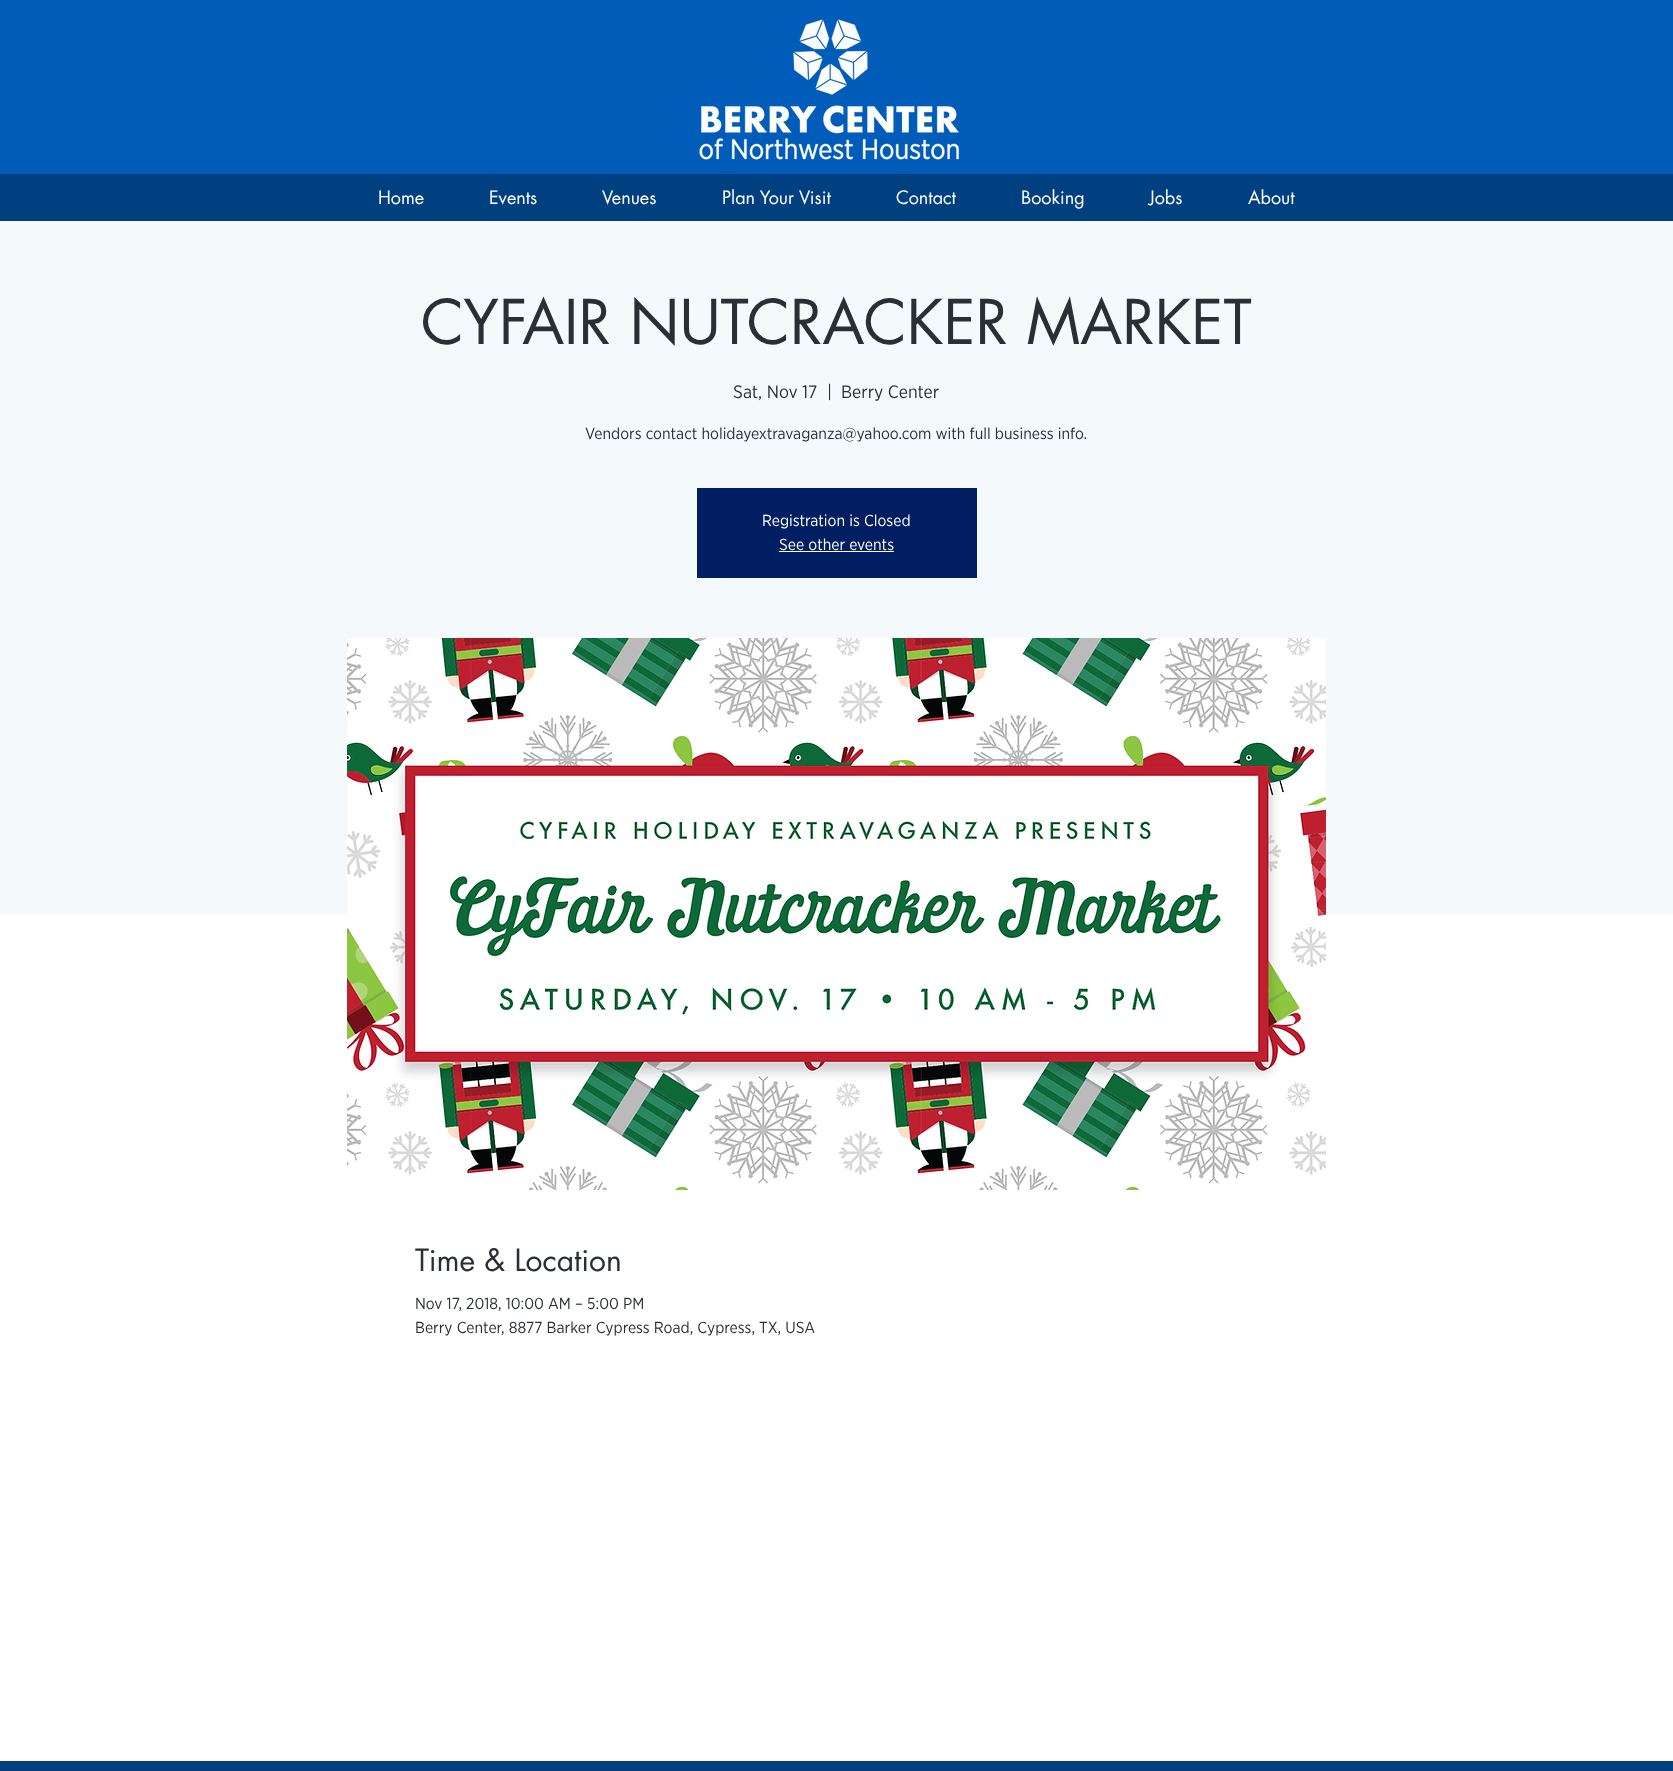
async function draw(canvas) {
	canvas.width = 1673;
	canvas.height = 1771;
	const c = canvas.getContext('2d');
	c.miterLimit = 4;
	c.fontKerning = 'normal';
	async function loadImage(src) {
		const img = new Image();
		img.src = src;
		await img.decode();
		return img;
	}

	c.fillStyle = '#fff';
	c.fillRect(0, 0, 1673, 1771);
	c.fillStyle = '#005cb9';
	c.fillRect(0, 0, 1673, 174);
	c.drawImage(await loadImage('img1.png'), 699, 19, 260, 141);
	c.fillStyle = '#003f80';
	c.fillRect(0, 174, 1673, 47);
	c.font = '18px futura';
	c.fillStyle = '#fff';
	for (const [text, x, y] of [
		['Home', 378, 204],
		['Events', 489, 204],
		['Venues', 602, 204],
		['Plan Your Visit', 722, 204],
		['Contact', 896, 204],
		['Booking', 1021, 204],
		['Jobs', 1149, 204],
		['About', 1248, 204],
	]) {
		c.fillText(text, x, y);
	}
	c.fillStyle = '#f4f9fb';
	c.fillRect(0, 221, 1673, 693);
	c.font = '60px futura';
	c.fillStyle = '#2a2f36';
	c.fillText('CYFAIR NUTCRACKER MARKET', 421, 344);
	c.font = '18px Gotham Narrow';
	for (const [text, x, y] of [
		['Sat, Nov 17', 733, 398],
		['|', 827, 398],
		['Berry Center', 841, 398],
	]) {
		c.fillText(text, x, y);
	}
	c.font = '16px Gotham Narrow';
	c.fillText('Vendors contact holidayextravaganza@yahoo.com with full business info.', 585, 439);
	c.fillStyle = '#011e62';
	c.fillRect(697, 488, 280, 90);
	c.fillStyle = '#fff';
	c.fillText('Registration is Closed', 762, 526);
	c.fillText('See other events', 779, 550);
	c.fillRect(779, 551, 115, 1);
	c.drawImage(await loadImage('img2.png'), 347, 638, 979, 552);
	c.font = '30px futura';
	c.fillStyle = '#2a2f36';
	c.fillText('Time & Location', 415, 1271);
	c.font = '16px Gotham Narrow';
	c.fillText('Nov 17, 2018, 10:00 AM – 5:00 PM', 415, 1309);
	c.fillText('Berry Center, 8877 Barker Cypress Road, Cypress, TX, USA', 415, 1333);
	c.fillStyle = '#003f80';
	c.fillRect(0, 1761, 1673, 10);
}

draw(document.querySelector('canvas'));
